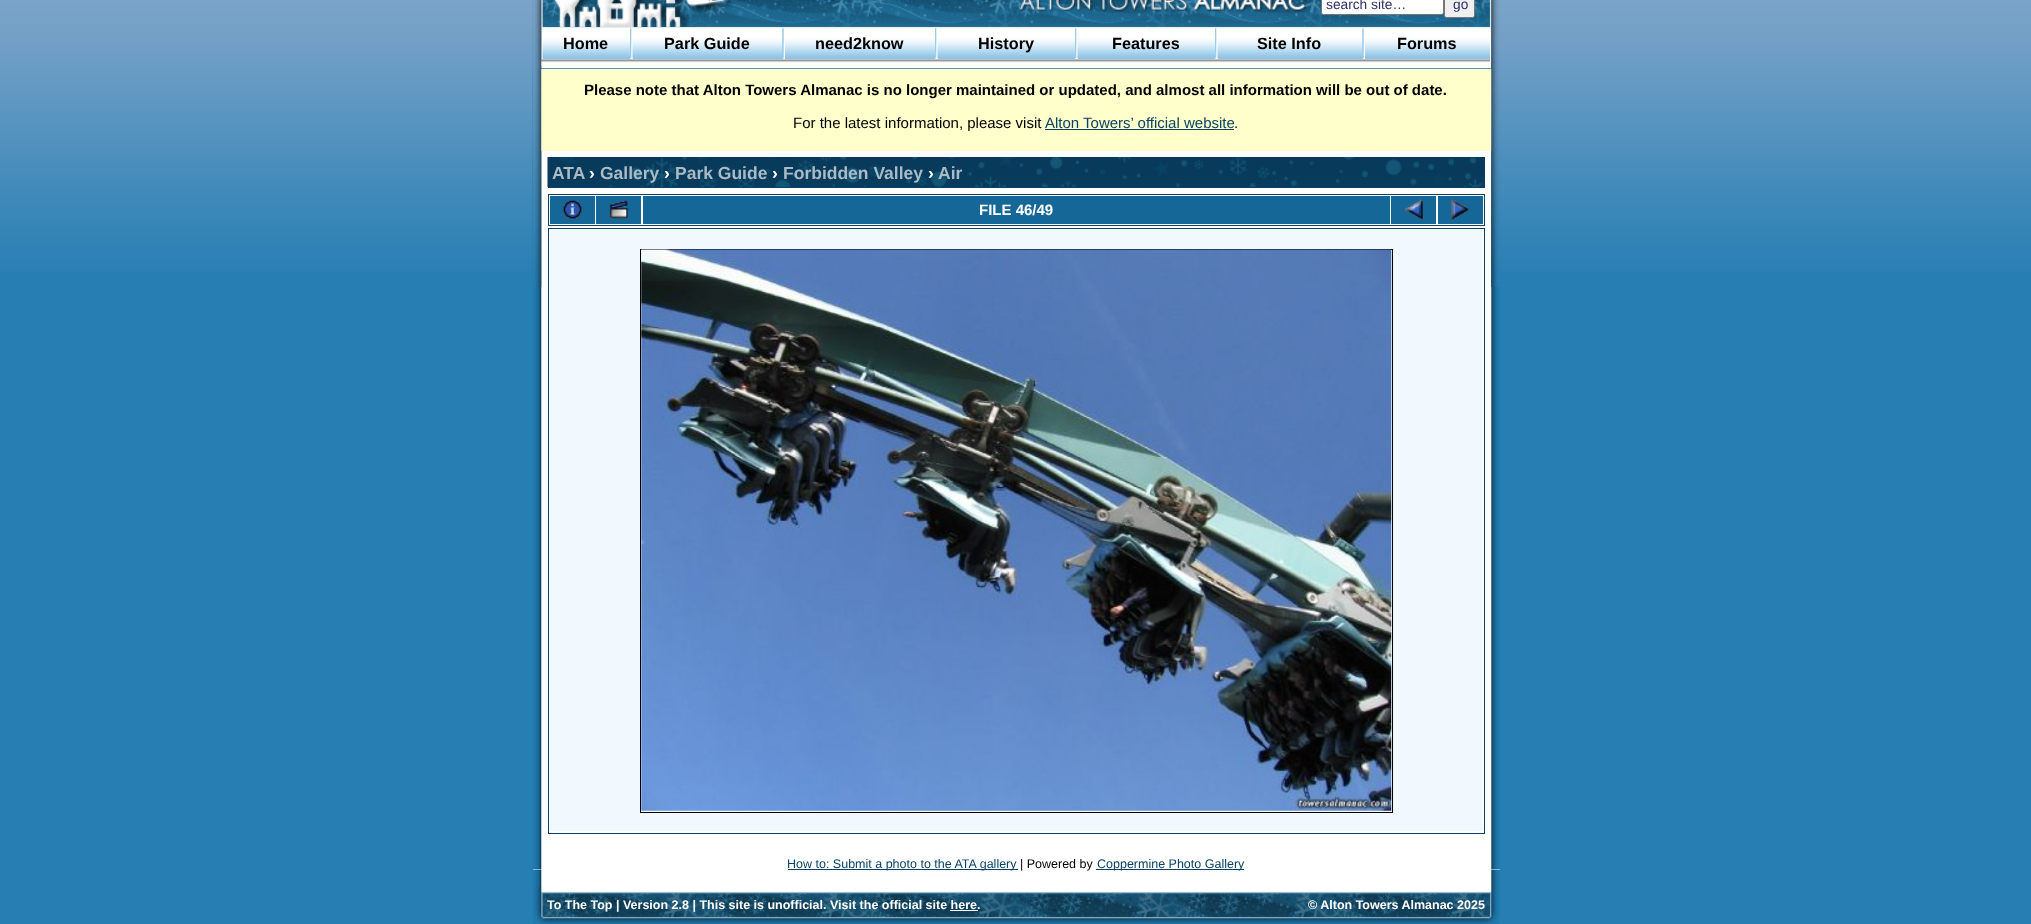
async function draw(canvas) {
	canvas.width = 2031;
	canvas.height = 924;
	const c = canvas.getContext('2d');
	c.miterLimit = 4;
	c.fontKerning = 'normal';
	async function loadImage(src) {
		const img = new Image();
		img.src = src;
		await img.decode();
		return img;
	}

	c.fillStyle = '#267eb2';
	c.fillRect(0, 0, 2031, 924);
	c.drawImage(await loadImage('img1.png'), 0, 0, 2031, 272);
	c.drawImage(await loadImage('img2.png'), 532, 0, 968, 924);
	c.fillStyle = '#1d74a8';
	c.fillRect(541, 68, 951, 1);
	c.drawImage(await loadImage('img4.png'), 532, 0, 960, 69);
	c.drawImage(await loadImage('img16.png'), 541, 59, 949, 7);
	c.fillStyle = '#ffc';
	c.fillRect(541, 69, 951, 82);
	c.fillStyle = '#fff';
	c.fillRect(533, 869, 967, 1);
	c.drawImage(await loadImage('img18.png'), 532, 157, 968, 713);
	c.drawImage(await loadImage('img3.png'), 532, 0, 10, 287);
	c.drawImage(await loadImage('img5.png'), 545, 0, 150, 27);
	c.drawImage(await loadImage('img6.png'), 1016, 0, 297, 16);
	c.beginPath();
	c.roundRect(1321.5, -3.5, 122, 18, 2);
	c.fill();
	c.strokeStyle = '#767676';
	c.stroke();
	c.font = '13.75px Liberation Sans';
	c.fillStyle = '#2e3066';
	c.fillText('search site…', 1326, 9);
	c.fillStyle = '#efefef';
	c.beginPath();
	c.roundRect(1444.5, -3.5, 30, 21, 2);
	c.fill();
	c.stroke();
	c.fillStyle = '#2e3066';
	c.fillText('go', 1453, 9);
	c.fillStyle = '#8ec5e7';
	c.fillRect(543, 58, 87, 1);
	c.drawImage(await loadImage('img7.png'), 542, 29, 88, 30);
	c.font = 'bold 16.25px Liberation Sans';
	c.fillStyle = '#000';
	c.fillText('Home', 563, 49);
	c.drawImage(await loadImage('img8.png'), 630, 28, 2, 31);
	c.fillStyle = '#8ec5e7';
	c.fillRect(633, 29, 150, 30);
	c.drawImage(await loadImage('img9.png'), 632, 29, 151, 30);
	c.fillStyle = '#000';
	c.fillText('Park Guide', 664, 49);
	c.drawImage(await loadImage('img10.png'), 782, 28, 2, 31);
	c.fillStyle = '#8ec5e7';
	c.fillRect(785, 57, 150, 2);
	c.drawImage(await loadImage('img11.png'), 785, 29, 150, 28);
	c.fillStyle = '#000';
	c.fillText('need2know', 815, 49);
	c.drawImage(await loadImage('img8.png'), 935, 28, 2, 31);
	c.fillStyle = '#8ec5e7';
	c.fillRect(938, 58, 137, 1);
	c.drawImage(await loadImage('img12.png'), 937, 29, 138, 30);
	c.fillStyle = '#000';
	c.fillText('History', 978, 49);
	c.drawImage(await loadImage('img8.png'), 1075, 28, 2, 31);
	c.fillStyle = '#8ec5e7';
	c.fillRect(1078, 58, 137, 1);
	c.drawImage(await loadImage('img13.png'), 1077, 29, 138, 30);
	c.fillStyle = '#000';
	c.fillText('Features', 1112, 49);
	c.drawImage(await loadImage('img8.png'), 1215, 28, 2, 31);
	c.fillStyle = '#8ec5e7';
	c.fillRect(1218, 29, 145, 30);
	c.drawImage(await loadImage('img14.png'), 1217, 29, 146, 30);
	c.fillStyle = '#000';
	c.fillText('Site Info', 1257, 49);
	c.drawImage(await loadImage('img10.png'), 1362, 28, 2, 31);
	c.fillStyle = '#8ec5e7';
	c.fillRect(1365, 57, 125, 2);
	c.drawImage(await loadImage('img15.png'), 1365, 29, 125, 28);
	c.fillStyle = '#000';
	c.fillText('Forums', 1397, 49);
	c.drawImage(await loadImage('img17.png'), 1491, 0, 9, 287);
	c.font = 'bold 15px Liberation Sans';
	c.fillText('Please note that Alton Towers Almanac is no longer maintained or updated, and almost all information will be out of date.', 584, 95);
	c.font = '15px Liberation Sans';
	c.fillText('For the latest information, please visit', 793, 128);
	c.fillStyle = '#094264';
	c.fillText('Alton Towers’ official website', 1045, 128);
	c.fillRect(1045, 129, 189, 1);
	c.fillStyle = '#000';
	c.fillText('.', 1234, 128);
	c.fillStyle = '#094264';
	c.fillRect(548, 187, 937, 1);
	c.drawImage(await loadImage('img19.png'), 547, 157, 938, 30);
	c.font = 'bold 17.5px Liberation Sans';
	c.fillStyle = '#aabbc5';
	c.fillText('ATA', 552, 179);
	c.fillStyle = '#fff';
	c.fillText('›', 589, 179);
	c.fillStyle = '#aabbc5';
	c.fillText('Gallery', 600, 179);
	c.fillStyle = '#fff';
	c.fillText('›', 664, 179);
	c.fillStyle = '#aabbc5';
	c.fillText('Park Guide', 675, 179);
	c.fillStyle = '#fff';
	c.fillText('›', 772, 179);
	c.fillStyle = '#aabbc5';
	c.fillText('Forbidden Valley', 783, 179);
	c.fillStyle = '#fff';
	c.fillText('›', 928, 179);
	c.fillStyle = '#aabbc5';
	c.fillText('Air', 938, 179);
	c.strokeStyle = '#094264';
	c.strokeRect(548.5, 194.5, 936, 31);
	c.fillStyle = '#156798';
	c.fillRect(550, 196, 45, 28);
	c.drawImage(await loadImage('img20.png'), 563, 200, 19, 19);
	c.fillRect(596, 196, 45, 28);
	c.drawImage(await loadImage('img21.png'), 609, 200, 19, 19);
	c.fillRect(643, 196, 747, 28);
	c.font = 'bold 15px Liberation Sans';
	c.fillStyle = '#fff';
	c.fillText('FILE 46/49', 979, 215);
	c.fillStyle = '#156798';
	c.fillRect(1391, 196, 45, 28);
	c.drawImage(await loadImage('img22.png'), 1404, 199, 19, 21);
	c.fillRect(1438, 196, 45, 28);
	c.drawImage(await loadImage('img23.png'), 1451, 199, 18, 21);
	c.strokeRect(548.5, 228.5, 936, 605);
	c.fillStyle = '#f1f9ff';
	c.fillRect(550, 230, 933, 601);
	c.strokeStyle = '#000';
	c.strokeRect(640.5, 249.5, 752, 563);
	c.drawImage(await loadImage('img24.png'), 641, 249, 751, 562);
	c.fillStyle = '#094264';
	c.fillRect(788, 869, 230, 1);
	c.font = '12.5px Liberation Sans';
	c.fillText('How to: Submit a photo to the ATA gallery', 787, 868);
	c.fillStyle = '#000';
	c.fillText('| Powered by', 1020, 868);
	c.fillStyle = '#094264';
	c.fillRect(1096, 869, 148, 1);
	c.fillText('Coppermine Photo Gallery', 1097, 868);
	c.drawImage(await loadImage('img25.png'), 533, 887, 967, 37);
	c.font = 'bold 12.5px Liberation Sans';
	c.fillStyle = '#fff';
	c.fillText('To The Top | Version 2.8 | This site is unofficial. Visit the official site here.', 547, 909);
	c.fillRect(950, 910, 28, 1);
	c.fillText('© Alton Towers Almanac 2025', 1308, 909);
}

draw(document.querySelector('canvas'));
